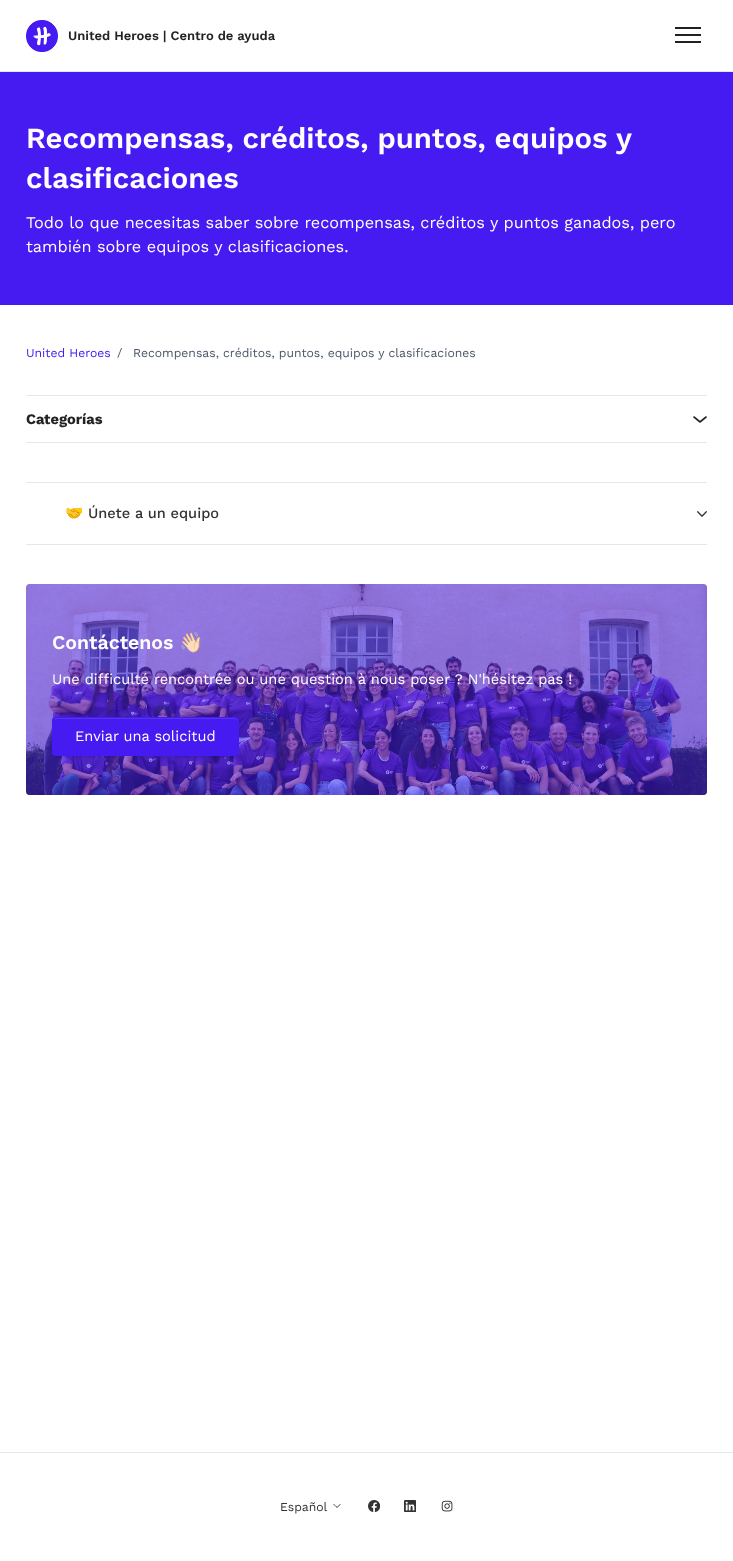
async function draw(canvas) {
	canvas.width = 733;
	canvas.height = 1561;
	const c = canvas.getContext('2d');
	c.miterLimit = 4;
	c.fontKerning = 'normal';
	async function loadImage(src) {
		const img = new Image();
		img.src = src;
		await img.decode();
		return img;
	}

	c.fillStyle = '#fff';
	c.fillRect(0, 0, 733, 1561);
	c.fillStyle = '#e2e8f0';
	c.fillRect(0, 71, 733, 1);
	c.drawImage(await loadImage('img1.png'), 26, 20, 32, 32);
	c.font = '600 13px Work Sans';
	c.fillStyle = '#222';
	c.fillText('United Heroes | Centro de ayuda', 68, 40);
	for (const [x, y, w, h, color] of [
		[675, 34, 26, 2, '#212121'],
		[675, 27, 26, 2, '#212121'],
		[675, 41, 26, 2, '#212121'],
		[0, 72, 733, 233, '#451bf1'],
	]) {
		c.fillStyle = color;
		c.fillRect(x, y, w, h);
	}
	c.font = '600 29.25px Work Sans';
	c.fillStyle = '#fefefe';
	c.fillText('Recompensas, créditos, puntos, equipos y', 26, 148);
	c.fillText('clasificaciones', 26, 188);
	c.font = '16.25px Work Sans';
	c.fillText('Todo lo que necesitas saber sobre recompensas, créditos y puntos ganados, pero', 26, 228);
	c.fillText('también sobre equipos y clasificaciones.', 26, 252);
	c.font = '12.2px Work Sans';
	c.fillStyle = '#451bf1';
	c.fillText('United Heroes', 26, 357);
	c.fillStyle = '#4a5568';
	c.fillText('/', 117, 357);
	c.fillText('Recompensas, créditos, puntos, equipos y clasificaciones', 133, 357);
	c.fillStyle = '#e2e8f0';
	c.fillRect(26, 395, 681, 1);
	c.fillRect(26, 442, 681, 1);
	c.font = 'bold 14.6px Work Sans';
	c.fillStyle = '#222';
	c.fillText('Categorías', 26, 424);
	c.drawImage(await loadImage('img2.png'), 693, 416, 14, 7);
	c.fillStyle = '#e2e8f0';
	c.fillRect(26, 482, 681, 1);
	c.fillRect(26, 544, 681, 1);
	c.font = '14.6px Noto Color Emoji';
	c.fillStyle = '#333';
	c.fillText('🤝', 65, 518);
	c.font = '500 14.6px Work Sans';
	c.fillText('Únete a un equipo', 88, 518);
	c.drawImage(await loadImage('img3.png'), 697, 511, 10, 6);
	c.drawImage(await loadImage('img4.png'), 26, 584, 681, 211);
	c.fillStyle = '#451bf182';
	c.beginPath();
	c.roundRect(26, 584, 681, 211, 4);
	c.fill();
	c.font = '600 19.5px Work Sans';
	c.fillStyle = '#fefefe';
	c.fillText('Contáctenos', 52, 649);
	c.font = 'bold 19.5px Noto Color Emoji';
	c.fillText('👋🏻', 179, 649);
	c.font = '14.6px Work Sans';
	c.fillText('Une difficulté rencontrée ou une question à nous poser ? N\'hésitez pas !', 52, 684);
	c.fillStyle = '#0000000d';
	c.beginPath();
	c.moveTo(52, 752);
	c.lineTo(52, 754);
	c.bezierCurveTo(52, 756, 54, 758, 56, 758);
	c.lineTo(235, 758);
	c.bezierCurveTo(237, 758, 239, 756, 239, 754);
	c.lineTo(239, 752);
	c.bezierCurveTo(239, 754, 237, 756, 235, 756);
	c.lineTo(56, 756);
	c.bezierCurveTo(54, 756, 52, 754, 52, 752);
	c.closePath();
	c.fill();
	c.fillStyle = '#451bf1';
	c.beginPath();
	c.roundRect(52, 717, 187, 39, 4);
	c.fill();
	c.fillStyle = '#5832f2';
	c.beginPath();
	c.moveTo(56, 719);
	c.lineTo(235, 719);
	c.lineTo(237, 720);
	c.lineTo(238, 722);
	c.bezierCurveTo(238, 720, 237, 718, 235, 718);
	c.lineTo(55, 718);
	c.bezierCurveTo(53, 719, 53, 720, 53, 722);
	c.bezierCurveTo(53, 720, 54, 719, 56, 719);
	c.closePath();
	c.fill();
	c.beginPath();
	c.roundRect(52.5, 717.5, 186, 38, 3.5);
	c.strokeStyle = '#451bf1';
	c.stroke();
	c.fillStyle = '#fefefe';
	c.fillText('Enviar una solicitud', 75, 741);
	c.fillStyle = '#e2e8f0';
	c.fillRect(0, 1452, 733, 1);
	c.font = '12.2px Work Sans';
	c.fillStyle = '#333';
	c.fillText('Español', 280, 1511);
	c.beginPath();
	c.moveTo(334, 1504.5);
	c.bezierCurveTo(338, 1508.5, 336.5, 1508, 340, 1504.5);
	c.strokeStyle = '#333';
	c.lineCap = 'round';
	c.stroke();
	c.drawImage(await loadImage('img5.png'), 368, 1500, 12, 12);
	c.drawImage(await loadImage('img6.png'), 404, 1500, 12, 12);
	c.drawImage(await loadImage('img7.png'), 441, 1500, 12, 12);
}

draw(document.querySelector('canvas'));
